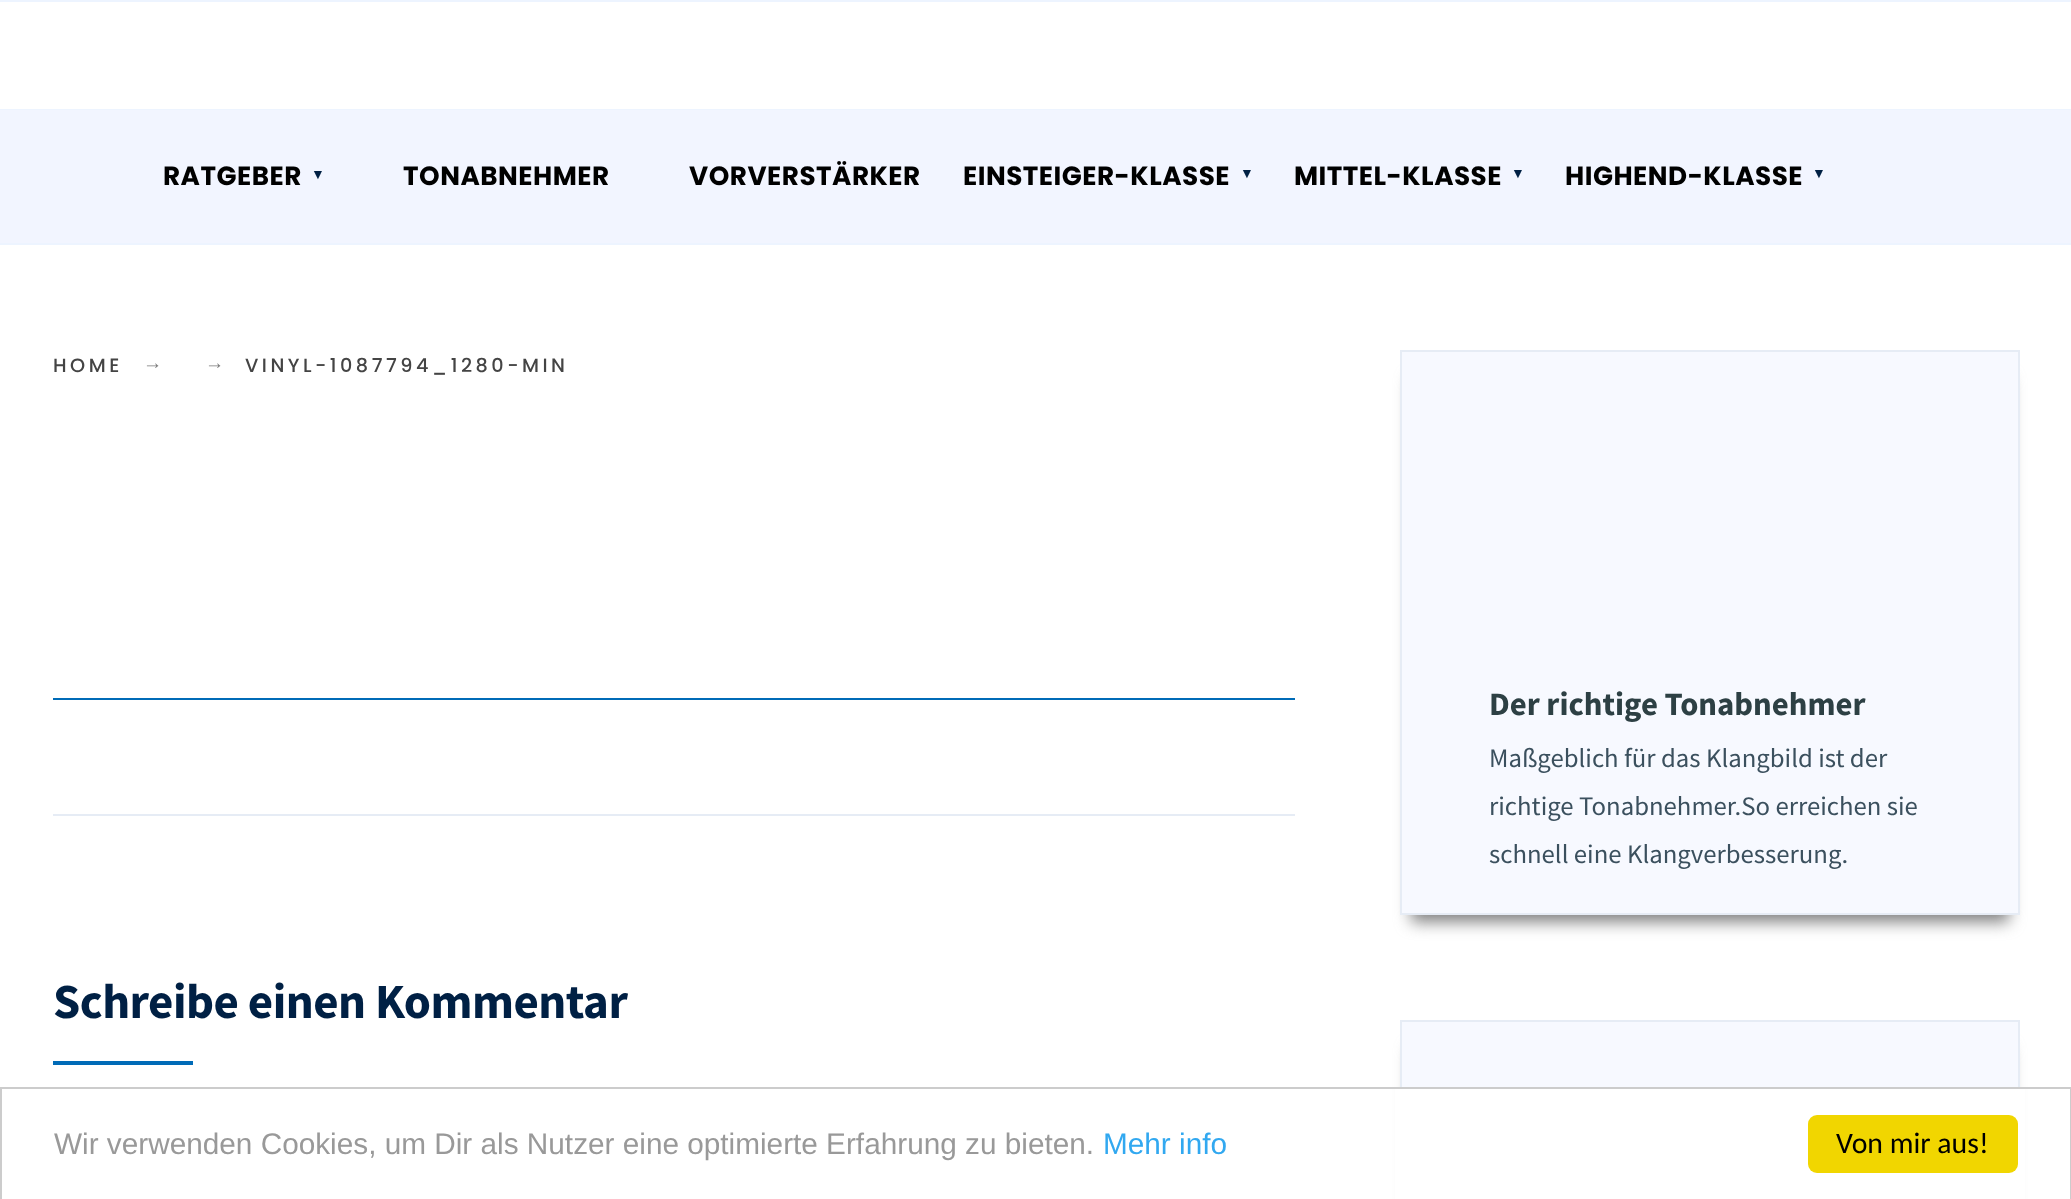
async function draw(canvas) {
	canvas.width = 2071;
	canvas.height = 1199;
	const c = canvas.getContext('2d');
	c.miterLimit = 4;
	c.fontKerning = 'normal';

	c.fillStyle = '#fff';
	c.fillRect(0, 0, 2071, 1199);
	for (const [x, y, w, h, color] of [
		[0, 0, 2071, 2, '#edf4ff'],
		[0, 109, 2071, 1, '#edf4ff'],
		[0, 110, 2071, 133, '#f2f5ff'],
		[0, 243, 2071, 2, '#edf4ff'],
	]) {
		c.fillStyle = color;
		c.fillRect(x, y, w, h);
	}
	c.letterSpacing = '0.5px';
	c.font = 'bold 26.25px Poppins';
	c.fillStyle = '#000';
	c.fillText('RATGEBER', 163, 185);
	c.font = '14px Liberation Sans';
	c.fillStyle = '#002044';
	c.fillText('▼', 311, 179);
	c.font = 'bold 26.25px Poppins';
	c.fillStyle = '#000';
	for (const [text, x, y] of [
		['TONABNEHMER', 403, 185],
		['VORVERSTÄRKER', 689, 185],
		['EINSTEIGER-KLASSE', 963, 185],
	]) {
		c.fillText(text, x, y);
	}
	c.font = '14px Liberation Sans';
	c.fillStyle = '#002044';
	c.fillText('▼', 1240, 178);
	c.font = 'bold 26.25px Poppins';
	c.fillStyle = '#000';
	c.fillText('MITTEL-KLASSE', 1294, 185);
	c.font = '14px Liberation Sans';
	c.fillStyle = '#002044';
	c.fillText('▼', 1511, 178);
	c.font = 'bold 26.25px Poppins';
	c.fillStyle = '#000';
	c.fillText('HIGHEND-KLASSE', 1565, 185);
	c.font = '14px Liberation Sans';
	c.fillStyle = '#002044';
	c.fillText('▼', 1812, 178);
	c.letterSpacing = '3.5px';
	c.font = '500 19.25px Poppins';
	c.fillStyle = '#444';
	c.fillText('HOME', 53, 372);
	c.font = '19.25px Liberation Serif';
	c.fillStyle = '#7c7c7c';
	c.fillText('→', 143, 369);
	c.fillText('→', 205, 369);
	c.font = '500 19.25px Poppins';
	c.fillStyle = '#444';
	c.fillText('VINYL-1087794_1280-MIN', 245, 372);
	c.fillStyle = '#006bb7';
	c.fillRect(53, 698, 1242, 2);
	c.fillStyle = '#e6ecf5';
	c.fillRect(53, 814, 1242, 2);
	c.letterSpacing = '-0.5px';
	c.font = 'bold 49px Source Sans Pro';
	c.fillStyle = '#002044';
	c.fillText('Schreibe einen Kommentar', 53, 1018);
	c.fillStyle = '#006bb7';
	c.fillRect(53, 1061, 140, 4);
	c.fillStyle = '#808080';
	c.filter = 'blur(8px)';
	c.beginPath();
	c.rect(1411, 378, 598, 544);
	c.fill();
	c.filter = 'none';
	c.fillStyle = '#f7f9ff';
	c.beginPath();
	c.rect(1401, 351, 618, 563);
	c.fill();
	c.strokeStyle = '#e6ecf5';
	c.lineWidth = 2;
	c.stroke();
	c.letterSpacing = '0px';
	c.font = 'bold 32.75px Source Sans Pro';
	c.fillStyle = '#2d4044';
	c.fillText('Der richtige Tonabnehmer', 1489, 715);
	c.font = '26.75px Source Sans Pro';
	c.fillStyle = '#3b505e';
	for (const [text, x, y] of [
		['Maßgeblich für das Klangbild ist der', 1489, 767],
		['richtige Tonabnehmer.So erreichen sie', 1489, 815],
		['schnell eine Klangverbesserung.', 1489, 863],
	]) {
		c.fillText(text, x, y);
	}
	c.fillStyle = '#808080';
	c.filter = 'blur(8px)';
	c.beginPath();
	c.rect(1411, 1048, 598, 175);
	c.fill();
	c.filter = 'none';
	c.fillStyle = '#f7f9ff';
	c.fillRect(1402, 1022, 616, 65);
	c.strokeRect(1401, 1021, 618, 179);
	c.fillStyle = '#fff';
	c.fillRect(1395, 1089, 630, 110);
	c.strokeStyle = '#ccc';
	c.strokeRect(1, 1088, 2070, 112);
	c.font = '29.75px Liberation Sans';
	c.fillStyle = '#999';
	c.fillText('Wir verwenden Cookies, um Dir als Nutzer eine optimierte Erfahrung zu bieten.', 54, 1154);
	c.fillStyle = '#31a8f0';
	c.fillText('Mehr info', 1103, 1154);
	c.fillStyle = '#f1d600';
	c.beginPath();
	c.roundRect(1808, 1115, 210, 58, 9);
	c.fill();
	c.font = '29.75px Carlito';
	c.fillStyle = '#000';
	c.fillText('Von mir aus!', 1836, 1153);
}

draw(document.querySelector('canvas'));
